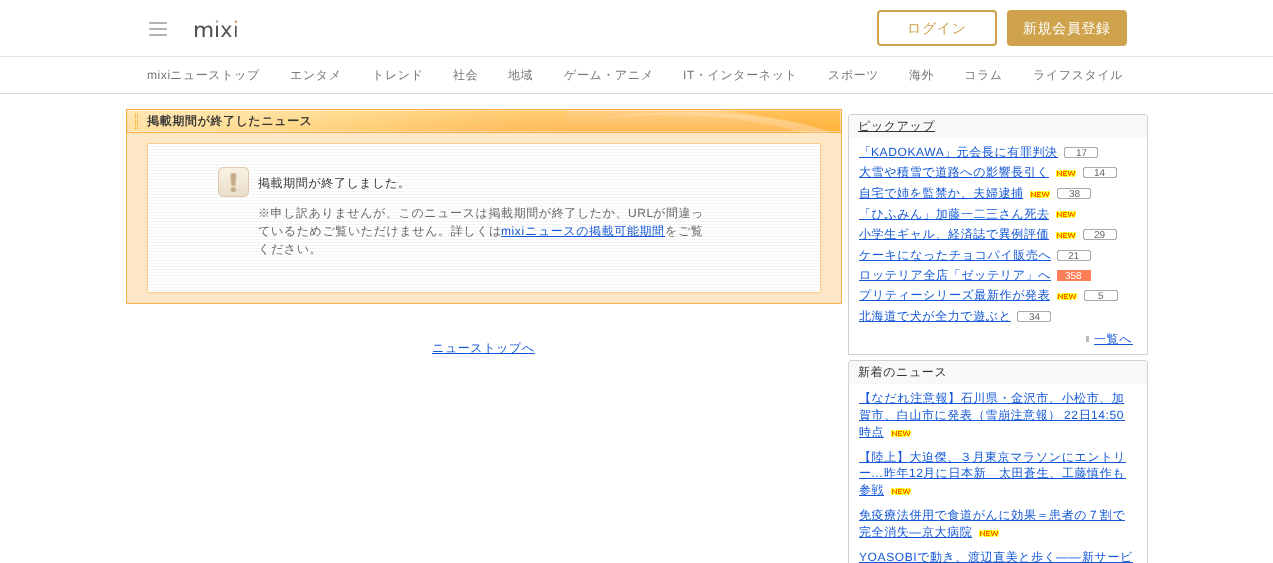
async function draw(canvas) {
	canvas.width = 1273;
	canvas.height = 563;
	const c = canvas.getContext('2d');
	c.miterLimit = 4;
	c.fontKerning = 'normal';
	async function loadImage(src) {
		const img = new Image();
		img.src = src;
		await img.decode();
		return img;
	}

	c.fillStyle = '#fff';
	c.fillRect(0, 0, 1273, 563);
	c.fillStyle = '#e1e1e1';
	c.fillRect(0, 56, 1273, 1);
	c.fillStyle = '#b2b2b2';
	c.beginPath();
	c.roundRect(149, 22, 18, 2, 1);
	c.fill();
	c.beginPath();
	c.roundRect(149, 28, 18, 2, 1);
	c.fill();
	c.beginPath();
	c.roundRect(149, 34, 18, 2, 1);
	c.fill();
	c.drawImage(await loadImage('img1.png'), 195, 20, 42, 17);
	c.beginPath();
	c.roundRect(878, 11, 118, 34, 3);
	c.strokeStyle = '#cfa34c';
	c.lineWidth = 2;
	c.stroke();
	c.letterSpacing = '0.6px';
	c.font = '500 14px WenQuanYi Zen Hei';
	c.fillStyle = '#cfa34c';
	c.fillText('ログイン', 907, 33);
	c.beginPath();
	c.roundRect(1008, 11, 118, 34, 3);
	c.fill();
	c.stroke();
	c.fillStyle = '#fff';
	c.fillText('新規会員登録', 1023, 33);
	c.fillStyle = '#d9d9d9';
	c.fillRect(0, 93, 1273, 1);
	c.font = '12px Liberation Sans';
	c.fillStyle = '#767676';
	c.fillText('mixi', 147, 79);
	c.font = '500 12px WenQuanYi Zen Hei';
	for (const [text, x, y] of [
		['ニューストップ', 170, 79],
		['エンタメ', 290, 79],
		['トレンド', 372, 79],
		['社会', 453, 79],
		['地域', 508, 79],
		['ゲーム・アニメ', 564, 79],
	]) {
		c.fillText(text, x, y);
	}
	c.font = '12px Liberation Sans';
	c.fillText('IT', 683, 79);
	c.font = '500 12px WenQuanYi Zen Hei';
	for (const [text, x, y] of [
		['・インターネット', 695, 79],
		['スポーツ', 828, 79],
		['海外', 909, 79],
		['コラム', 964, 79],
		['ライフスタイル', 1033, 79],
	]) {
		c.fillText(text, x, y);
	}
	c.drawImage(await loadImage('img2.png'), 126, 109, 716, 24);
	c.font = 'bold 12px WenQuanYi Zen Hei';
	c.fillStyle = '#333';
	c.fillText('掲載期間が終了したニュース', 147, 125);
	for (const [x, y, w, h, color] of [
		[127, 133, 714, 170, '#fee7c6'],
		[841, 133, 1, 171, '#fbb14e'],
		[126, 303, 716, 1, '#fbb14e'],
		[126, 133, 1, 171, '#fbb14e'],
	]) {
		c.fillStyle = color;
		c.fillRect(x, y, w, h);
	}
	c.drawImage(await loadImage('img3.png'), 148, 144, 672, 148);
	c.strokeStyle = '#ffcd8f';
	c.lineWidth = 1;
	c.strokeRect(147.5, 143.5, 673, 149);
	c.drawImage(await loadImage('img4.png'), 218, 167, 31, 30);
	c.font = '500 12px WenQuanYi Zen Hei';
	c.fillStyle = '#333';
	c.fillText('掲載期間が終了しました。', 258, 187);
	c.fillStyle = '#666';
	c.fillText('※申し訳ありませんが、このニュースは掲載期間が終了したか、', 258, 217);
	c.font = '12px Liberation Sans';
	c.fillText('URL', 628, 217);
	c.font = '500 12px WenQuanYi Zen Hei';
	c.fillText('が間違っ', 653, 217);
	c.fillText('ているためご覧いただけません。詳しくは', 258, 235);
	c.font = '12px Liberation Sans';
	c.fillStyle = '#1558d6';
	c.fillText('mixi', 501, 235);
	c.fillRect(501, 236, 164, 1);
	c.font = '500 12px WenQuanYi Zen Hei';
	c.fillText('ニュースの掲載可能期間', 525, 235);
	c.fillStyle = '#666';
	c.fillText('をご覧', 665, 235);
	c.fillText('ください。', 258, 253);
	c.fillStyle = '#1558d6';
	c.fillRect(432, 353, 103, 1);
	c.fillText('ニューストップへ', 432, 352);
	c.fillStyle = '#d0d0d1';
	c.fillRect(848, 354, 300, 1);
	c.drawImage(await loadImage('img5.png'), 848, 114, 300, 24);
	c.fillStyle = '#333';
	c.fillRect(858, 131, 77, 1);
	c.fillText('ピックアップ', 858, 130);
	c.fillStyle = '#d0d0d1';
	c.fillRect(1147, 138, 1, 216);
	c.fillRect(848, 138, 1, 216);
	c.fillStyle = '#1558d6';
	c.fillText('「', 859, 156);
	c.font = '12px Liberation Sans';
	c.fillText('KADOKAWA', 871, 156);
	c.fillRect(859, 157, 199, 1);
	c.font = '500 12px WenQuanYi Zen Hei';
	c.fillText('」元会長に有罪判決', 944, 156);
	c.drawImage(await loadImage('img6.png'), 1064, 147, 34, 11);
	c.letterSpacing = '0px';
	c.font = '10px Liberation Sans';
	c.fillStyle = '#666';
	c.fillText('17', 1076, 156);
	c.fillStyle = '#1558d6';
	c.fillRect(859, 177, 190, 1);
	c.letterSpacing = '0.6px';
	c.font = '500 12px WenQuanYi Zen Hei';
	c.fillText('大雪や積雪で道路への影響長引く', 859, 176);
	c.drawImage(await loadImage('img7.png'), 1056, 170, 20, 7);
	c.drawImage(await loadImage('img6.png'), 1083, 167, 34, 11);
	c.letterSpacing = '0px';
	c.font = '10px Liberation Sans';
	c.fillStyle = '#666';
	c.fillText('14', 1094, 176);
	c.fillStyle = '#1558d6';
	c.fillRect(859, 198, 164, 1);
	c.letterSpacing = '0.6px';
	c.font = '500 12px WenQuanYi Zen Hei';
	c.fillText('自宅で姉を監禁か、夫婦逮捕', 859, 197);
	c.drawImage(await loadImage('img7.png'), 1030, 191, 20, 7);
	c.drawImage(await loadImage('img6.png'), 1057, 188, 34, 11);
	c.letterSpacing = '0px';
	c.font = '10px Liberation Sans';
	c.fillStyle = '#666';
	c.fillText('38', 1069, 197);
	c.fillStyle = '#1558d6';
	c.fillRect(859, 219, 190, 1);
	c.letterSpacing = '0.6px';
	c.font = '500 12px WenQuanYi Zen Hei';
	c.fillText('「ひふみん」加藤一二三さん死去', 859, 218);
	c.drawImage(await loadImage('img7.png'), 1056, 211, 20, 7);
	c.fillRect(859, 239, 190, 1);
	c.fillText('小学生ギャル、経済誌で異例評価', 859, 238);
	c.drawImage(await loadImage('img7.png'), 1056, 232, 20, 7);
	c.drawImage(await loadImage('img6.png'), 1083, 229, 34, 11);
	c.letterSpacing = '0px';
	c.font = '10px Liberation Sans';
	c.fillStyle = '#666';
	c.fillText('29', 1094, 238);
	c.fillStyle = '#1558d6';
	c.fillRect(859, 260, 192, 1);
	c.letterSpacing = '0.6px';
	c.font = '500 12px WenQuanYi Zen Hei';
	c.fillText('ケーキになったチョコパイ販売へ', 859, 259);
	c.drawImage(await loadImage('img6.png'), 1057, 250, 34, 11);
	c.letterSpacing = '0px';
	c.font = '10px Liberation Sans';
	c.fillStyle = '#666';
	c.fillText('21', 1068, 259);
	c.fillStyle = '#1558d6';
	c.fillRect(859, 280, 192, 1);
	c.letterSpacing = '0.6px';
	c.font = '500 12px WenQuanYi Zen Hei';
	c.fillText('ロッテリア全店「ゼッテリア」へ', 859, 279);
	c.fillStyle = '#ff7e57';
	c.fillRect(1057, 270, 34, 11);
	c.letterSpacing = '0px';
	c.font = '10px Liberation Sans';
	c.fillStyle = '#fff';
	c.fillText('358', 1065, 279);
	c.fillStyle = '#1558d6';
	c.fillRect(859, 300, 191, 1);
	c.letterSpacing = '0.6px';
	c.font = '500 12px WenQuanYi Zen Hei';
	c.fillText('プリティーシリーズ最新作が発表', 859, 299);
	c.drawImage(await loadImage('img7.png'), 1057, 293, 20, 7);
	c.drawImage(await loadImage('img6.png'), 1084, 290, 34, 11);
	c.letterSpacing = '0px';
	c.font = '10px Liberation Sans';
	c.fillStyle = '#666';
	c.fillText('5', 1098, 299);
	c.fillStyle = '#1558d6';
	c.fillRect(859, 321, 152, 1);
	c.letterSpacing = '0.6px';
	c.font = '500 12px WenQuanYi Zen Hei';
	c.fillText('北海道で犬が全力で遊ぶと', 859, 320);
	c.drawImage(await loadImage('img6.png'), 1017, 311, 34, 11);
	c.letterSpacing = '0px';
	c.font = '10px Liberation Sans';
	c.fillStyle = '#666';
	c.fillText('34', 1029, 320);
	c.fillStyle = '#1558d6';
	c.fillRect(1094, 344, 39, 1);
	c.letterSpacing = '0.6px';
	c.font = '500 12px WenQuanYi Zen Hei';
	c.fillText('一覧へ', 1094, 343);
	c.fillStyle = '#bbb';
	c.fillRect(1086, 336, 3, 6);
	c.drawImage(await loadImage('img5.png'), 848, 360, 300, 24);
	c.fillStyle = '#333';
	c.fillText('新着のニュース', 858, 376);
	for (const [x, y, w, h, color] of [
		[1147, 384, 1, 179, '#d0d0d1'],
		[848, 384, 1, 179, '#d0d0d1'],
		[859, 403, 265, 1, '#1558d6'],
	]) {
		c.fillStyle = color;
		c.fillRect(x, y, w, h);
	}
	c.fillText('【なだれ注意報】石川県・金沢市、小松市、加', 859, 402);
	c.fillRect(859, 420, 266, 1);
	c.fillText('賀市、白山市に発表（雪崩注意報）', 859, 419);
	c.font = '12px Liberation Sans';
	c.fillText('22', 1064, 419);
	c.font = '500 12px WenQuanYi Zen Hei';
	c.fillText('日', 1079, 419);
	c.font = '12px Liberation Sans';
	c.fillText('14:50', 1091, 419);
	c.fillRect(859, 437, 25, 1);
	c.font = '500 12px WenQuanYi Zen Hei';
	c.fillText('時点', 859, 436);
	c.drawImage(await loadImage('img7.png'), 891, 430, 20, 7);
	c.fillRect(859, 462, 267, 1);
	c.fillText('【陸上】大迫傑、３月東京マラソンにエントリ', 859, 461);
	c.fillText('ー', 859, 477);
	c.fillRect(859, 478, 267, 1);
	c.fillText('昨年', 884, 477);
	c.font = '12px Liberation Sans';
	c.fillText('12', 909, 477);
	c.font = '500 12px WenQuanYi Zen Hei';
	c.fillText('月に日本新　太田蒼生、工藤慎作も', 923, 477);
	c.font = '12px Liberation Sans';
	c.fillText('…', 871, 477);
	c.fillRect(859, 495, 25, 1);
	c.font = '500 12px WenQuanYi Zen Hei';
	c.fillText('参戦', 859, 494);
	c.drawImage(await loadImage('img7.png'), 891, 488, 20, 7);
	c.fillRect(859, 520, 266, 1);
	c.fillText('免疫療法併用で食道がんに効果＝患者の７割で', 859, 519);
	c.fillRect(859, 537, 113, 1);
	c.fillText('完全消失', 859, 536);
	c.font = '12px Liberation Sans';
	c.fillText('―', 909, 536);
	c.font = '500 12px WenQuanYi Zen Hei';
	c.fillText('京大病院', 922, 536);
	c.drawImage(await loadImage('img7.png'), 979, 530, 20, 7);
	c.font = '12px Liberation Sans';
	c.fillText('YOASOBI', 859, 561);
	c.fillRect(859, 562, 274, 1);
	c.font = '500 12px WenQuanYi Zen Hei';
	c.fillText('で動き、渡辺直美と歩く', 917, 561);
	c.font = '12px Liberation Sans';
	c.fillText('――', 1056, 561);
	c.font = '500 12px WenQuanYi Zen Hei';
	c.fillText('新サービ', 1082, 561);
}

draw(document.querySelector('canvas'));
